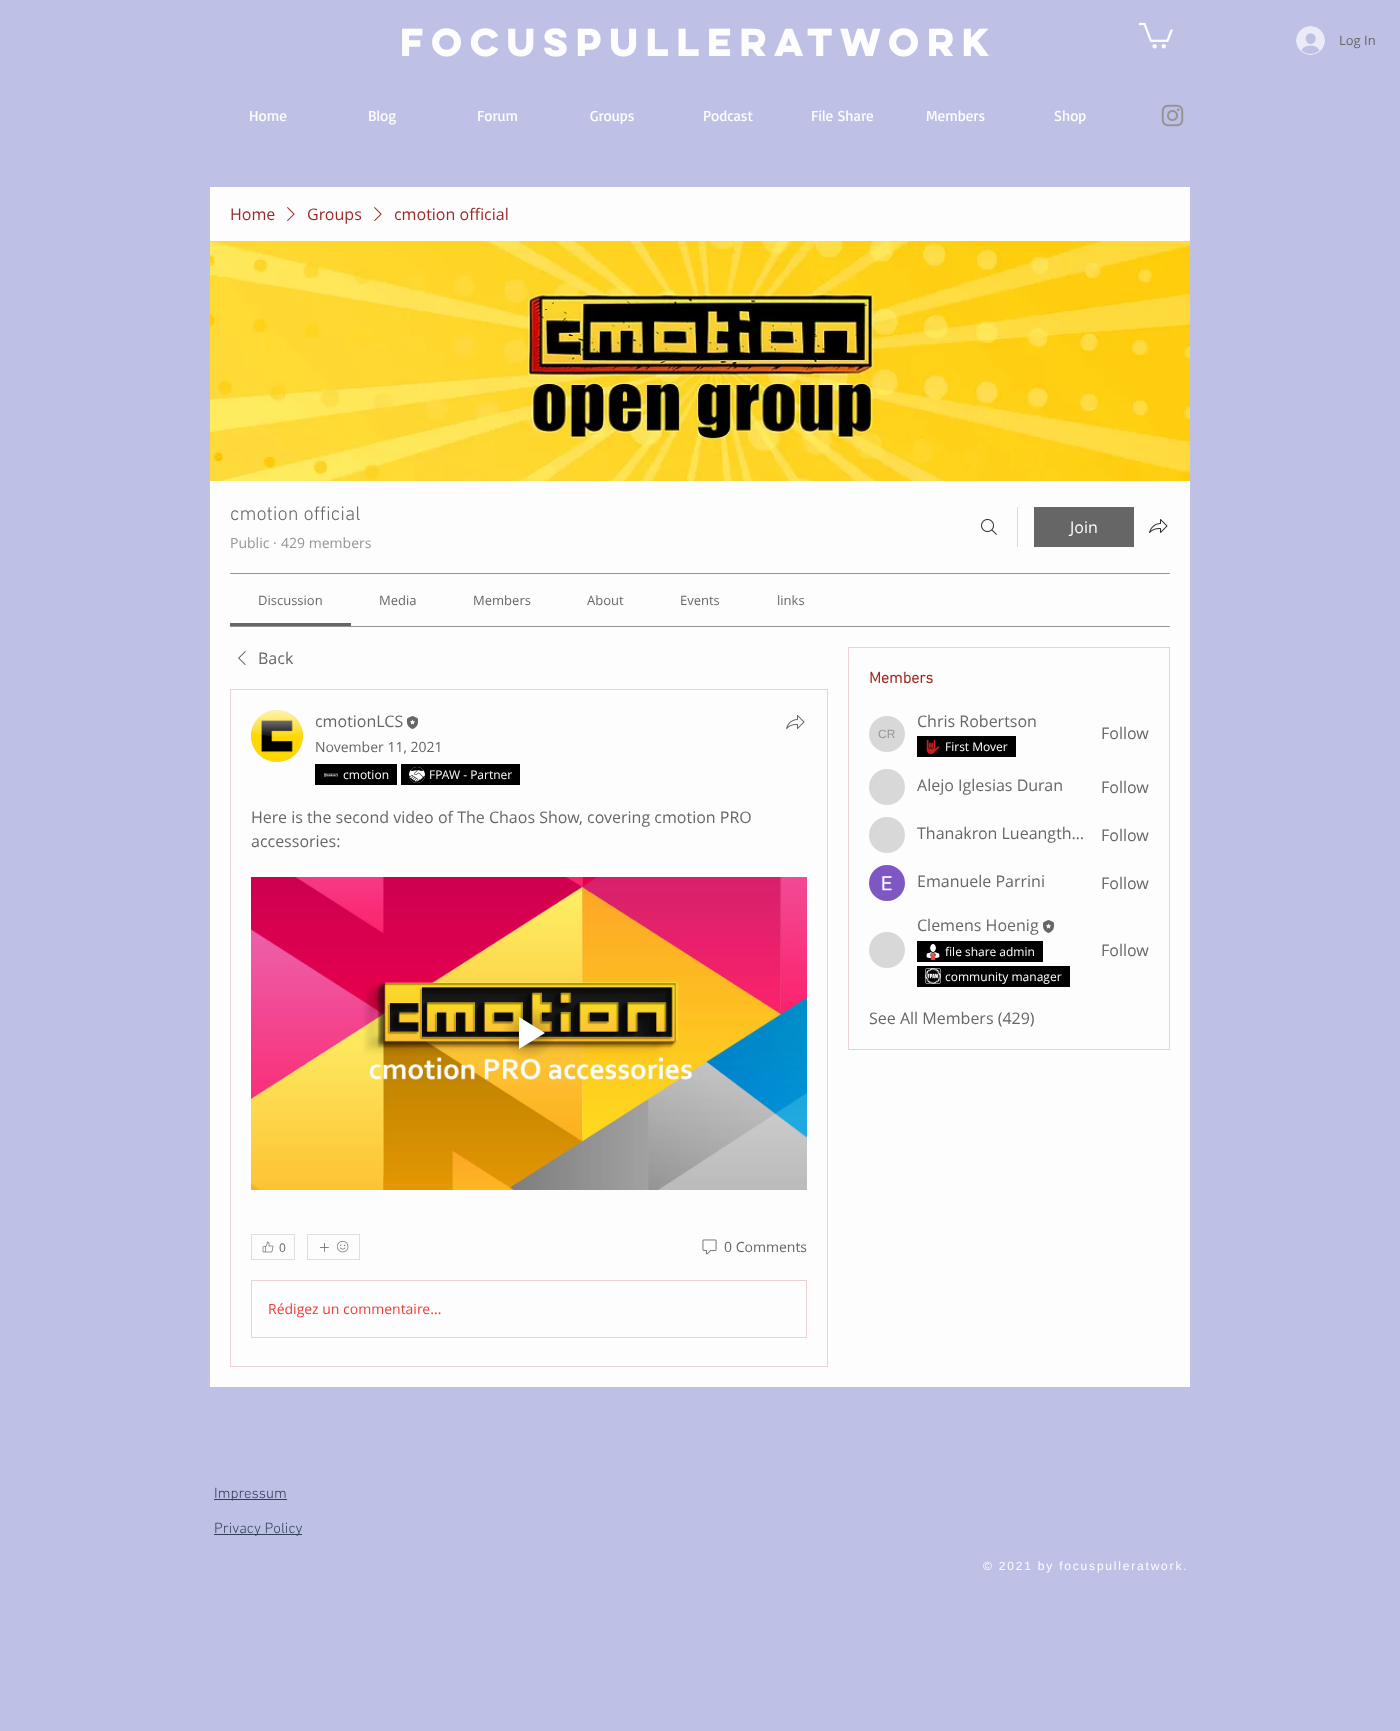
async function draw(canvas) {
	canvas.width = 1400;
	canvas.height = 1731;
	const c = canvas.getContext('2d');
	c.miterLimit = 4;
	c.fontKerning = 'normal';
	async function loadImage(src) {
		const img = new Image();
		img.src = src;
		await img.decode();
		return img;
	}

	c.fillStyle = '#bec0e6';
	c.fillRect(0, 0, 1400, 1731);
	c.font = 'bold 35px "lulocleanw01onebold"';
	c.fillStyle = '#fdfdfd';
	c.fillText('focuspulleratwork', 400, 56);
	c.drawImage(await loadImage('img1.png'), 1139, 22, 34, 27);
	c.drawImage(await loadImage('img2.png'), 1296, 26, 29, 29);
	c.font = '13px Open Sans';
	c.fillStyle = '#676666';
	c.fillText('Log In', 1339, 45);
	c.font = '15px Basic';
	c.fillStyle = '#fdfdfd';
	for (const [text, x, y] of [
		['Home', 249, 121],
		['Blog', 368, 121],
		['Forum', 477, 121],
		['Groups', 590, 121],
		['Podcast', 703, 121],
		['File Share', 811, 121],
		['Members', 926, 121],
		['Shop', 1054, 121],
	]) {
		c.fillText(text, x, y);
	}
	c.drawImage(await loadImage('img3.png'), 1161, 104, 23, 23);
	c.fillRect(210, 187, 980, 1200);
	c.font = '16px Open Sans';
	c.fillStyle = '#9e2824';
	c.fillText('Home', 230, 220);
	c.drawImage(await loadImage('img4.png'), 287, 207, 8, 14);
	c.fillText('Groups', 307, 220);
	c.drawImage(await loadImage('img4.png'), 374, 207, 8, 14);
	c.fillText('cmotion official', 394, 220);
	c.drawImage(await loadImage('img5.png'), 210, 241, 980, 240);
	c.font = '300 20px "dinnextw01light"';
	c.fillStyle = '#676666';
	c.fillText('cmotion official', 230, 520);
	c.font = '14px Open Sans';
	c.fillStyle = '#939597';
	for (const [text, x, y] of [
		['Public', 230, 548],
		['·', 273, 548],
		['429 members', 281, 548],
	]) {
		c.fillText(text, x, y);
	}
	c.drawImage(await loadImage('img6.png'), 981, 519, 16, 16);
	c.fillStyle = '#ead2d2';
	c.fillRect(1017, 507, 1, 40);
	c.fillStyle = '#676666';
	c.fillRect(1034, 507, 100, 40);
	c.font = '16px Open Sans';
	c.fillStyle = '#fdfdfd';
	c.fillText('Join', 1070, 533);
	c.drawImage(await loadImage('img7.png'), 1149, 519, 19, 14);
	for (const [x, y, w, h, color] of [
		[230, 573, 940, 1, '#939597'],
		[230, 626, 940, 1, '#939597'],
		[230, 623, 121, 3, '#676666'],
	]) {
		c.fillStyle = color;
		c.fillRect(x, y, w, h);
	}
	c.font = '13px Open Sans';
	for (const [text, x, y] of [
		['Discussion', 258, 605],
		['Media', 379, 605],
		['Members', 473, 605],
		['About', 587, 605],
		['Events', 680, 605],
		['links', 777, 605],
	]) {
		c.fillText(text, x, y);
	}
	c.drawImage(await loadImage('img8.png'), 238, 651, 8, 14);
	c.font = '16px Open Sans';
	c.fillText('Back', 258, 664);
	c.strokeStyle = '#ead2d2';
	c.strokeRect(230.5, 689.5, 597, 677);
	c.fillStyle = '#d8d8d8';
	c.beginPath();
	c.arc(277, 736, 26, 0, 2 * Math.PI);
	c.fill();
	c.drawImage(await loadImage('img9.png'), 251, 710, 52, 52);
	c.fillStyle = '#676666';
	c.fillText('cmotionLCS', 315, 727);
	c.drawImage(await loadImage('img10.png'), 407, 716, 11, 13);
	c.font = '14px Open Sans';
	c.fillText('November 11, 2021', 315, 752);
	c.fillStyle = '#000';
	c.fillRect(315, 764, 82, 21);
	c.drawImage(await loadImage('img11.png'), 324, 773, 14, 4);
	c.font = '12px Open Sans';
	c.fillStyle = '#fdfdfd';
	c.fillText('cmotion', 343, 779);
	c.fillStyle = '#000';
	c.fillRect(401, 764, 119, 21);
	c.drawImage(await loadImage('img12.png'), 409, 767, 16, 16);
	c.fillStyle = '#fdfdfd';
	c.fillText('FPAW - Partner', 429, 779);
	c.drawImage(await loadImage('img13.png'), 786, 715, 19, 14);
	c.font = '16px Open Sans';
	c.fillStyle = '#676666';
	c.fillText('Here is the second video of The Chaos Show, covering cmotion PRO', 251, 823);
	c.fillText('accessories:', 251, 847);
	c.drawImage(await loadImage('img14.png'), 251, 877, 556, 313);
	c.fillStyle = '#fff';
	c.beginPath();
	c.moveTo(519, 1049);
	c.lineTo(519, 1017);
	c.lineTo(545, 1033);
	c.closePath();
	c.fill();
	c.strokeStyle = '#dfdfdf';
	c.strokeRect(251.5, 1234.5, 43, 25);
	c.drawImage(await loadImage('img15.png'), 262, 1241, 12, 12);
	c.font = '12px Open Sans';
	c.fillStyle = '#676666';
	c.fillText('0', 279, 1252);
	c.strokeRect(307.5, 1234.5, 52, 25);
	c.drawImage(await loadImage('img16.png'), 320, 1243, 9, 9);
	c.drawImage(await loadImage('img17.png'), 337, 1241, 12, 12);
	c.drawImage(await loadImage('img18.png'), 702, 1239, 15, 16);
	c.font = '14px Open Sans';
	c.fillText('0 Comments', 724, 1252);
	c.strokeStyle = '#ead2d2';
	c.strokeRect(251.5, 1280.5, 555, 57);
	c.fillStyle = '#ed3c36';
	c.fillText('Rédigez un commentaire...', 268, 1314);
	c.strokeRect(848.5, 647.5, 321, 402);
	c.font = 'bold 16px "dinnextw01light"';
	c.fillStyle = '#9e2824';
	c.fillText('Members', 869, 683);
	c.fillStyle = '#d8d8d8';
	c.beginPath();
	c.arc(887, 734, 18, 0, 2 * Math.PI);
	c.fill();
	c.font = '12px Liberation Sans';
	c.fillStyle = '#939597';
	c.fillText('CR', 878, 738);
	c.font = '16px Open Sans';
	c.fillStyle = '#676666';
	c.fillText('Chris Robertson', 917, 727);
	c.fillStyle = '#000';
	c.fillRect(917, 736, 99, 21);
	c.drawImage(await loadImage('img19.png'), 926, 740, 14, 15);
	c.font = '12px Open Sans';
	c.fillStyle = '#fdfdfd';
	c.fillText('First Mover', 945, 751);
	c.font = '16px Open Sans';
	c.fillStyle = '#676666';
	c.fillText('Follow', 1101, 739);
	c.fillStyle = '#d8d8d8';
	c.beginPath();
	c.arc(887, 787, 18, 0, 2 * Math.PI);
	c.fill();
	c.fillStyle = '#676666';
	c.fillText('Alejo Iglesias Duran', 917, 791);
	c.fillText('Follow', 1101, 793);
	c.fillStyle = '#d8d8d8';
	c.beginPath();
	c.arc(887, 835, 18, 0, 2 * Math.PI);
	c.fill();
	c.fillStyle = '#676666';
	c.fillText('Thanakron Lueangth…', 917, 839);
	c.fillText('Follow', 1101, 841);
	c.drawImage(await loadImage('img20.png'), 869, 865, 36, 36);
	c.fillText('Emanuele Parrini', 917, 887);
	c.fillText('Follow', 1101, 889);
	c.fillStyle = '#d8d8d8';
	c.beginPath();
	c.arc(887, 950, 18, 0, 2 * Math.PI);
	c.fill();
	c.fillStyle = '#676666';
	c.fillText('Clemens Hoenig', 917, 931);
	c.drawImage(await loadImage('img10.png'), 1043, 920, 11, 13);
	c.fillStyle = '#000';
	c.fillRect(917, 941, 126, 21);
	c.drawImage(await loadImage('img21.png'), 926, 944, 14, 16);
	c.font = '12px Open Sans';
	c.fillStyle = '#fdfdfd';
	c.fillText('file share admin', 945, 956);
	c.fillStyle = '#000';
	c.fillRect(917, 966, 153, 21);
	c.drawImage(await loadImage('img22.png'), 925, 968, 16, 16);
	c.fillStyle = '#fdfdfd';
	c.fillText('community manager', 945, 981);
	c.font = '16px Open Sans';
	c.fillStyle = '#676666';
	c.fillText('Follow', 1101, 956);
	c.fillText('See All Members (429)', 869, 1024);
	c.fillStyle = '#324158';
	c.fillRect(214, 1499, 73, 1);
	c.font = '300 15px "dinnextw01light"';
	c.fillText('Impressum', 214, 1498);
	c.fillRect(214, 1534, 88, 1);
	c.fillText('Privacy Policy', 214, 1533);
	c.letterSpacing = '1.8px';
	c.font = '12px Liberation Sans';
	c.fillStyle = '#fdfdfd';
	c.fillText('© 2021 by focuspulleratwork.', 983, 1570);
}

draw(document.querySelector('canvas'));
